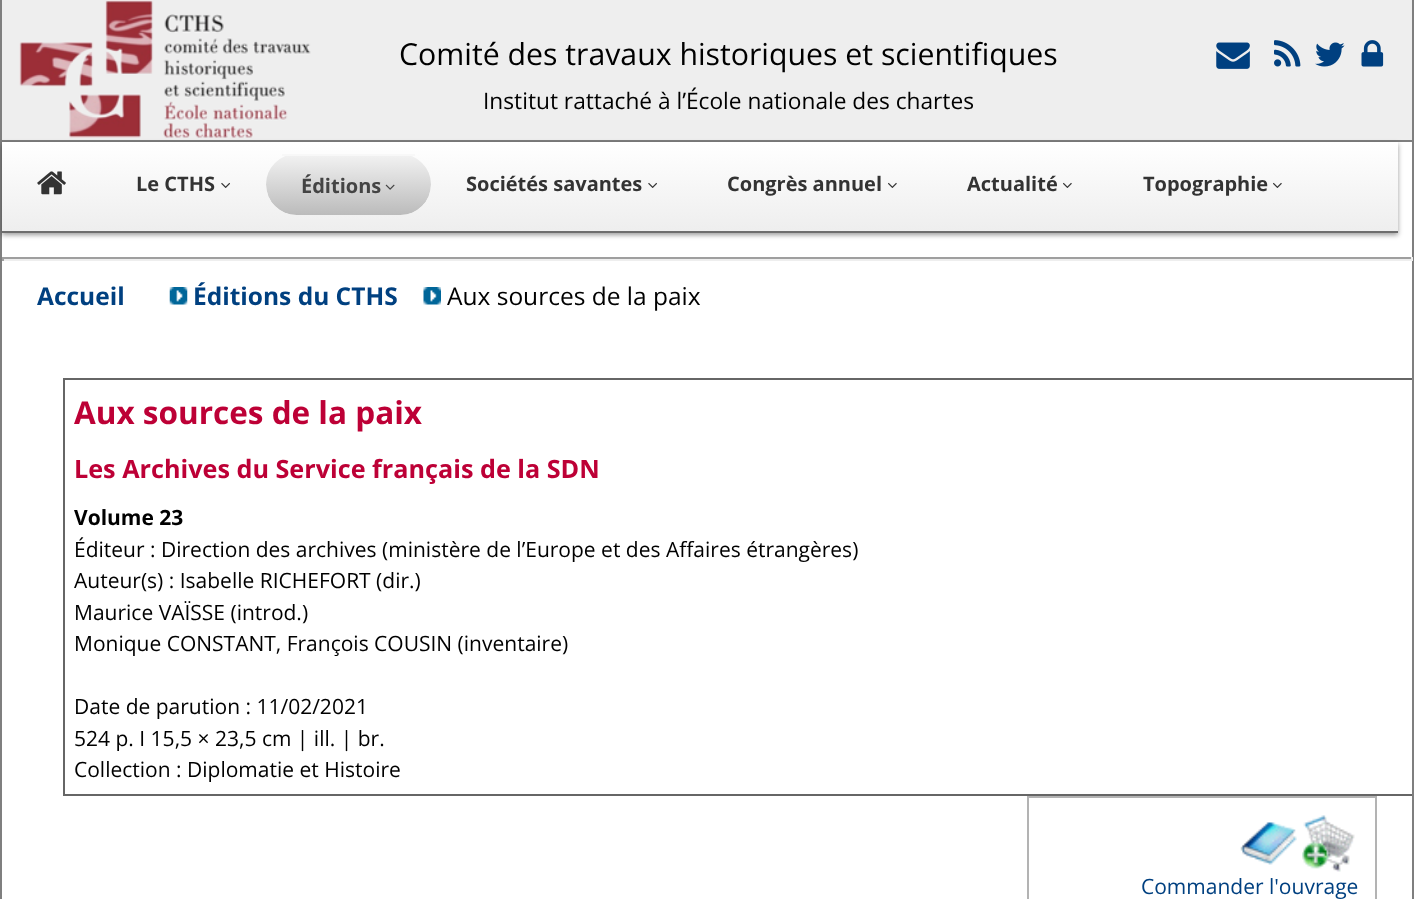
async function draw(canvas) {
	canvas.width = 1414;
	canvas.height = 899;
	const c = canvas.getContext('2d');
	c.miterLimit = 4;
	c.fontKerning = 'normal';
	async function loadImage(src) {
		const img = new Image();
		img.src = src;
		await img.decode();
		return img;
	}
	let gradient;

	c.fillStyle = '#fff';
	c.fillRect(0, 0, 1414, 899);
	for (const [x, y, w, h, color] of [
		[1412, 0, 2, 899, '#7f7f7f'],
		[0, 0, 2, 899, '#7f7f7f'],
		[2, 0, 1410, 140, '#eee'],
		[2, 140, 1410, 2, '#7f7f7f'],
	]) {
		c.fillStyle = color;
		c.fillRect(x, y, w, h);
	}
	c.drawImage(await loadImage('img1.png'), 19, 0, 292, 138);
	c.font = '30.25px Open Sans';
	c.fillStyle = '#000';
	c.fillText('Comité des travaux historiques et scientifiques', 399, 65);
	c.font = '22.7px Open Sans';
	c.fillText('Institut rattaché à l’École nationale des chartes', 483, 109);
	c.drawImage(await loadImage('img2.png'), 1216, 42, 34, 27);
	c.drawImage(await loadImage('img3.png'), 1274, 40, 27, 27);
	c.drawImage(await loadImage('img4.png'), 1315, 42, 30, 25);
	c.drawImage(await loadImage('img5.png'), 1361, 40, 23, 27);
	c.fillStyle = '#00000066';
	c.filter = 'blur(2.5px)';
	c.beginPath();
	c.rect(2, 144, 1396, 91);
	c.fill();
	c.filter = 'none';
	gradient = c.createLinearGradient(1.8, 142, 1.8, 231);
	gradient.addColorStop(0, '#fff');
	gradient.addColorStop(1, '#eee');
	c.fillStyle = gradient;
	c.fillRect(2, 142, 1396, 89);
	c.fillStyle = '#6d6d6d';
	c.fillRect(2, 231, 1396, 2);
	c.drawImage(await loadImage('img6.png'), 37, 171, 29, 24);
	c.font = 'bold 20px Open Sans';
	c.fillStyle = '#333';
	c.fillText('Le CTHS', 136, 191);
	c.drawImage(await loadImage('img7.png'), 221, 182, 9, 6);
	c.save();
	c.beginPath();
	c.roundRect(266, 154, 165, 61, 30.5);
	c.clip();
	gradient = c.createLinearGradient(266, 156, 266, 215);
	gradient.addColorStop(0, '#f1f1f1');
	gradient.addColorStop(1, '#bbb');
	c.fillStyle = gradient;
	c.beginPath();
	c.roundRect(266, 156, 165, 59, [0, 0, 30.5, 30.5]);
	c.fill();
	c.restore();
	c.fillStyle = '#f8f8f8';
	c.fillRect(282, 154, 133, 2);
	c.fillStyle = '#444';
	c.fillText('Éditions', 301, 193);
	c.drawImage(await loadImage('img8.png'), 385, 184, 10, 6);
	c.fillStyle = '#333';
	c.fillText('Sociétés savantes', 466, 191);
	c.drawImage(await loadImage('img7.png'), 648, 182, 9, 6);
	c.fillText('Congrès annuel', 727, 191);
	c.drawImage(await loadImage('img9.png'), 888, 182, 9, 6);
	c.fillText('Actualité', 967, 191);
	c.drawImage(await loadImage('img9.png'), 1063, 182, 9, 6);
	c.fillText('Topographie', 1143, 191);
	c.drawImage(await loadImage('img9.png'), 1273, 182, 9, 6);
	for (const [x, y, w, h, color] of [
		[2, 257, 1410, 2, '#9f9f9f'],
		[1411, 257, 2, 4, '#eee'],
		[2, 259, 1410, 2, '#eee'],
		[2, 257, 2, 4, '#9f9f9f'],
	]) {
		c.fillStyle = color;
		c.fillRect(x, y, w, h);
	}
	c.font = 'bold 24.5px Open Sans';
	c.fillStyle = '#004080';
	c.fillText('Accueil', 37, 305);
	c.drawImage(await loadImage('img10.png'), 169, 287, 19, 18);
	c.fillText('Éditions du CTHS', 193, 305);
	c.drawImage(await loadImage('img11.png'), 423, 287, 18, 18);
	c.font = '24.5px Open Sans';
	c.fillStyle = '#000';
	c.fillText('Aux sources de la paix', 447, 305);
	c.save();
	c.beginPath();
	c.rect(2, 271, 1410, 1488);
	c.clip();
	c.strokeStyle = '#666';
	c.lineWidth = 2;
	c.strokeRect(64, 379, 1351, 416);
	c.restore();
	c.font = 'bold 31.5px Open Sans';
	c.fillStyle = '#bd0036';
	c.fillText('Aux sources de la paix', 74, 424);
	c.font = 'bold 25.2px Open Sans';
	c.fillText('Les Archives du Service français de la SDN', 74, 478);
	c.font = 'bold 21px Open Sans';
	c.fillStyle = '#000';
	c.fillText('Volume 23', 74, 525);
	c.font = '21px Open Sans';
	for (const [text, x, y] of [
		['Éditeur : Direction des archives (ministère de l’Europe et des Affaires étrangères)', 74, 557],
		['Auteur(s) : Isabelle RICHEFORT (dir.)', 74, 588],
		['Maurice VAÏSSE (introd.)', 74, 620],
		['Monique CONSTANT, François COUSIN (inventaire)', 74, 651],
		['Date de parution : 11/02/2021', 74, 714],
		['524 p. I 15,5 × 23,5 cm | ill. | br.', 74, 746],
		['Collection : Diplomatie et Histoire', 74, 777],
	]) {
		c.fillText(text, x, y);
	}
	c.strokeStyle = '#b3b3b3';
	c.lineWidth = 2;
	c.strokeRect(1028, 797, 348, 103);
	c.drawImage(await loadImage('img12.png'), 1240, 822, 57, 43);
	c.drawImage(await loadImage('img13.png'), 1302, 815, 53, 57);
	c.fillStyle = '#004080';
	c.fillText('Commander l\'ouvrage', 1141, 894);
}

draw(document.querySelector('canvas'));
